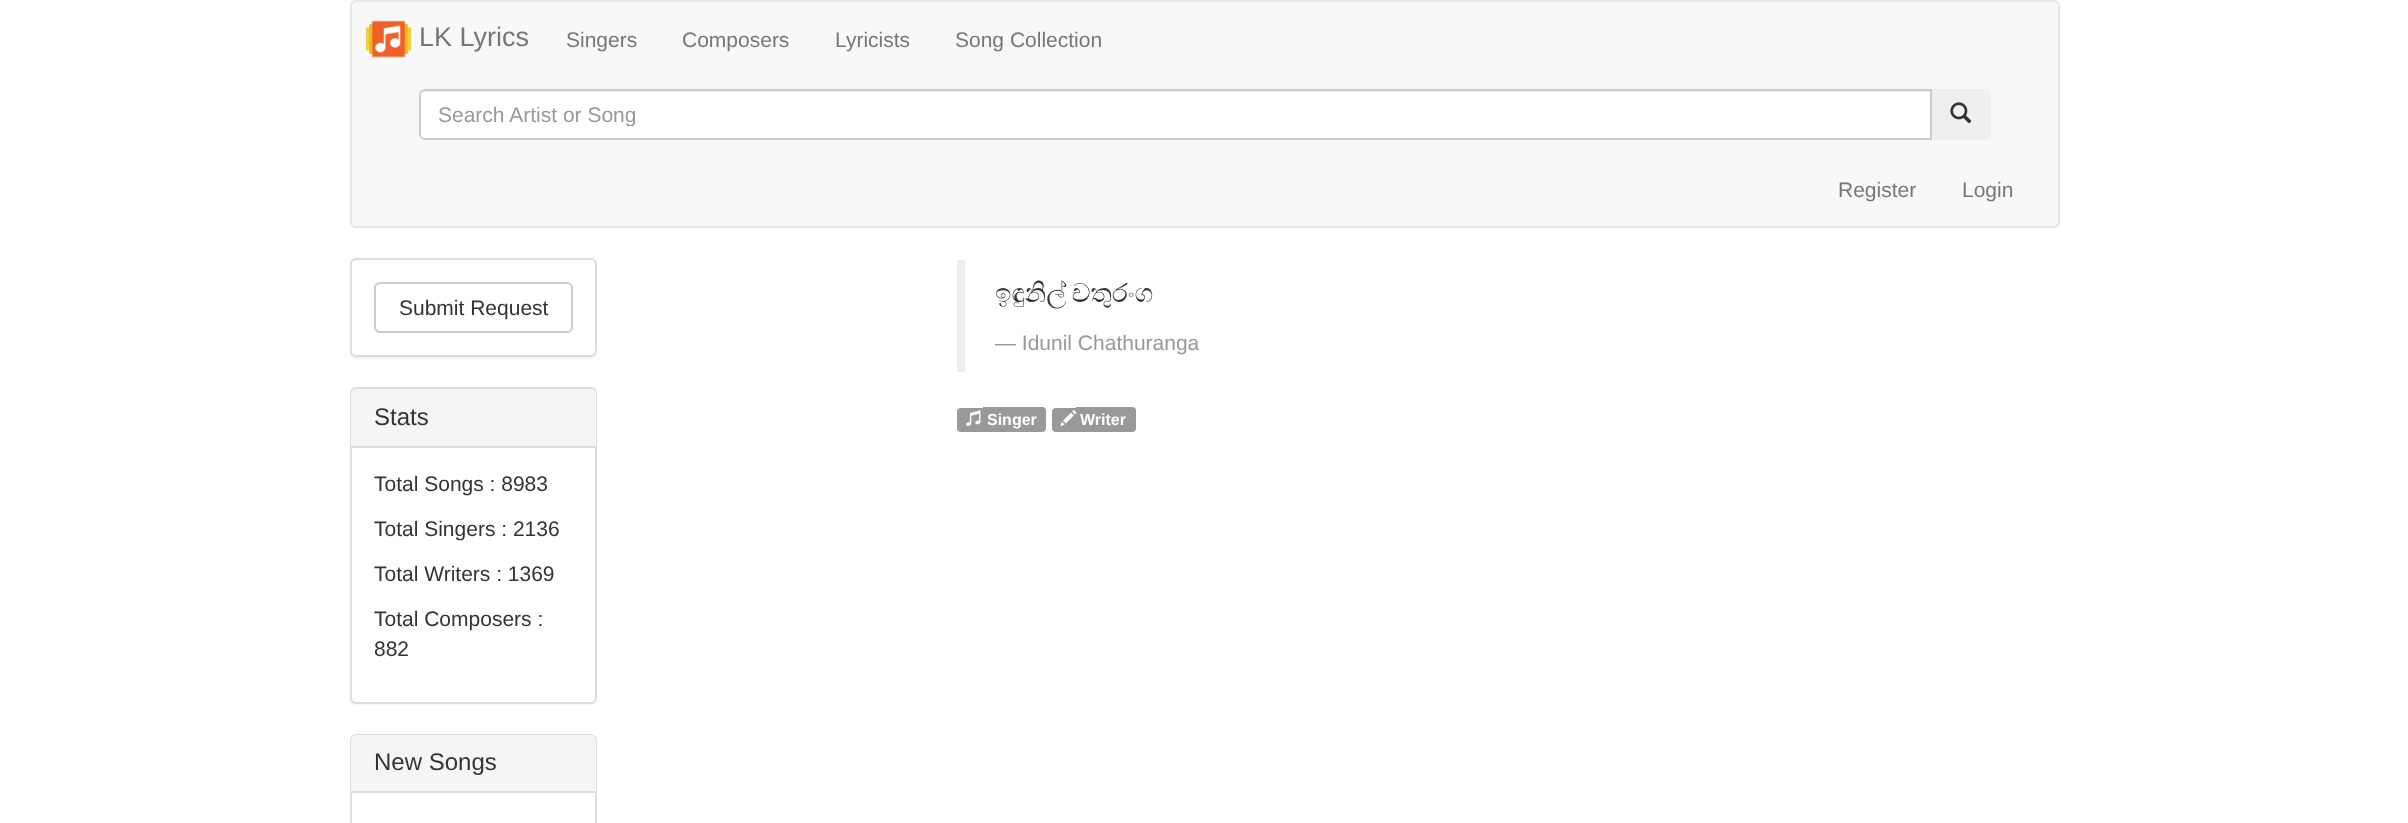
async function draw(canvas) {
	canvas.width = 2408;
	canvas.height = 823;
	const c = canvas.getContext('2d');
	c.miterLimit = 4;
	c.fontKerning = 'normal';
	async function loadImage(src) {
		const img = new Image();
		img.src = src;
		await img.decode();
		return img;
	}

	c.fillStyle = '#fff';
	c.fillRect(0, 0, 2408, 823);
	c.fillStyle = '#f8f8f8';
	c.beginPath();
	c.roundRect(351, 1, 1708, 226, 5);
	c.fill();
	c.strokeStyle = '#e7e7e7';
	c.lineWidth = 2;
	c.stroke();
	c.drawImage(await loadImage('img1.png'), 366, 20, 45, 38);
	c.font = '27px Liberation Sans';
	c.fillStyle = '#777';
	c.fillText('LK Lyrics', 419, 46);
	c.font = '21px Liberation Sans';
	for (const [text, x, y] of [
		['Singers', 566, 47],
		['Composers', 682, 47],
		['Lyricists', 835, 47],
		['Song Collection', 955, 47],
	]) {
		c.fillText(text, x, y);
	}
	c.fillStyle = '#efefef';
	c.beginPath();
	c.roundRect(1931, 89, 60, 51, [0, 6, 6, 0]);
	c.fill();
	c.fillStyle = '#fff';
	c.beginPath();
	c.roundRect(419, 89, 1513, 51, [6, 0, 0, 6]);
	c.fill();
	c.fillStyle = '#ececec';
	c.beginPath();
	c.moveTo(424, 92);
	c.lineTo(1930, 92);
	c.lineTo(1930, 138);
	c.lineTo(1931, 138);
	c.lineTo(1931, 90);
	c.lineTo(425, 90);
	c.bezierCurveTo(422, 90, 420, 93, 420, 96);
	c.bezierCurveTo(420, 94, 422, 92, 424, 92);
	c.closePath();
	c.fill();
	c.beginPath();
	c.roundRect(420, 90, 1511, 49, [5, 0, 0, 5]);
	c.strokeStyle = '#ccc';
	c.stroke();
	c.save();
	c.beginPath();
	c.rect(438, 102, 1475, 24);
	c.clip();
	c.fillStyle = '#999';
	c.fillText('Search Artist or Song', 438, 122);
	c.restore();
	c.drawImage(await loadImage('img2.png'), 1950, 102, 22, 22);
	c.fillStyle = '#777';
	c.fillText('Register', 1838, 197);
	c.fillText('Login', 1962, 197);
	c.fillStyle = '#0000000d';
	c.filter = 'blur(1px)';
	c.beginPath();
	c.roundRect(350, 260, 247, 99, 6);
	c.fill();
	c.filter = 'none';
	c.fillStyle = '#fff';
	c.beginPath();
	c.roundRect(351, 259, 245, 97, 5);
	c.fill();
	c.strokeStyle = '#ddd';
	c.stroke();
	c.beginPath();
	c.roundRect(375, 283, 197, 49, 5);
	c.strokeStyle = '#ccc';
	c.stroke();
	c.fillStyle = '#333';
	c.fillText('Submit Request', 399, 315);
	c.fillStyle = '#0000000d';
	c.filter = 'blur(1px)';
	c.beginPath();
	c.roundRect(350, 389, 247, 316, 6);
	c.fill();
	c.filter = 'none';
	c.fillStyle = '#fff';
	c.beginPath();
	c.roundRect(351, 388, 245, 315, 5);
	c.fill();
	c.strokeStyle = '#ddd';
	c.stroke();
	c.fillStyle = '#f5f5f5';
	c.beginPath();
	c.roundRect(351, 389, 245, 58, [5, 5, 0, 0]);
	c.fill();
	c.fillStyle = '#ddd';
	c.fillRect(351, 446, 245, 2);
	c.font = '24px Liberation Sans';
	c.fillStyle = '#333';
	c.fillText('Stats', 374, 425);
	c.font = '21px Liberation Sans';
	for (const [text, x, y] of [
		['Total Songs : 8983', 374, 491],
		['Total Singers : 2136', 374, 536],
		['Total Writers : 1369', 374, 581],
		['Total Composers :', 374, 626],
		['882', 374, 656],
	]) {
		c.fillText(text, x, y);
	}
	c.beginPath();
	c.roundRect(351, 735, 245, 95, 5);
	c.stroke();
	c.fillStyle = '#f5f5f5';
	c.beginPath();
	c.roundRect(351, 735, 245, 57, [5, 5, 0, 0]);
	c.fill();
	c.fillStyle = '#ddd';
	c.fillRect(351, 791, 245, 2);
	c.font = '24px Liberation Sans';
	c.fillStyle = '#333';
	c.fillText('New Songs', 374, 770);
	c.fillStyle = '#eee';
	c.fillRect(957, 260, 8, 112);
	c.wordSpacing = '-1px';
	c.font = '26.25px FreeSerif';
	c.fillStyle = '#333';
	c.fillText('ඉඳුනිල් චතුරංග', 995, 302);
	c.wordSpacing = '0px';
	c.font = '21px Liberation Sans';
	c.fillStyle = '#999';
	c.fillText('— Idunil Chathuranga', 995, 350);
	c.beginPath();
	c.roundRect(957, 408, 26, 24, [4, 0, 0, 4]);
	c.fill();
	c.beginPath();
	c.roundRect(983, 407, 63, 25, [0, 4, 4, 0]);
	c.fill();
	c.drawImage(await loadImage('img3.png'), 966, 410, 15, 16);
	c.font = 'bold 16px Liberation Sans';
	c.fillStyle = '#fff';
	c.fillText('Singer', 987, 425);
	c.fillStyle = '#999';
	c.beginPath();
	c.roundRect(1052, 408, 24, 24, [4, 0, 0, 4]);
	c.fill();
	c.beginPath();
	c.roundRect(1076, 407, 60, 25, [0, 4, 4, 0]);
	c.fill();
	c.drawImage(await loadImage('img4.png'), 1060, 410, 17, 16);
	c.fillStyle = '#fff';
	c.fillText('Writer', 1080, 425);
}

draw(document.querySelector('canvas'));
